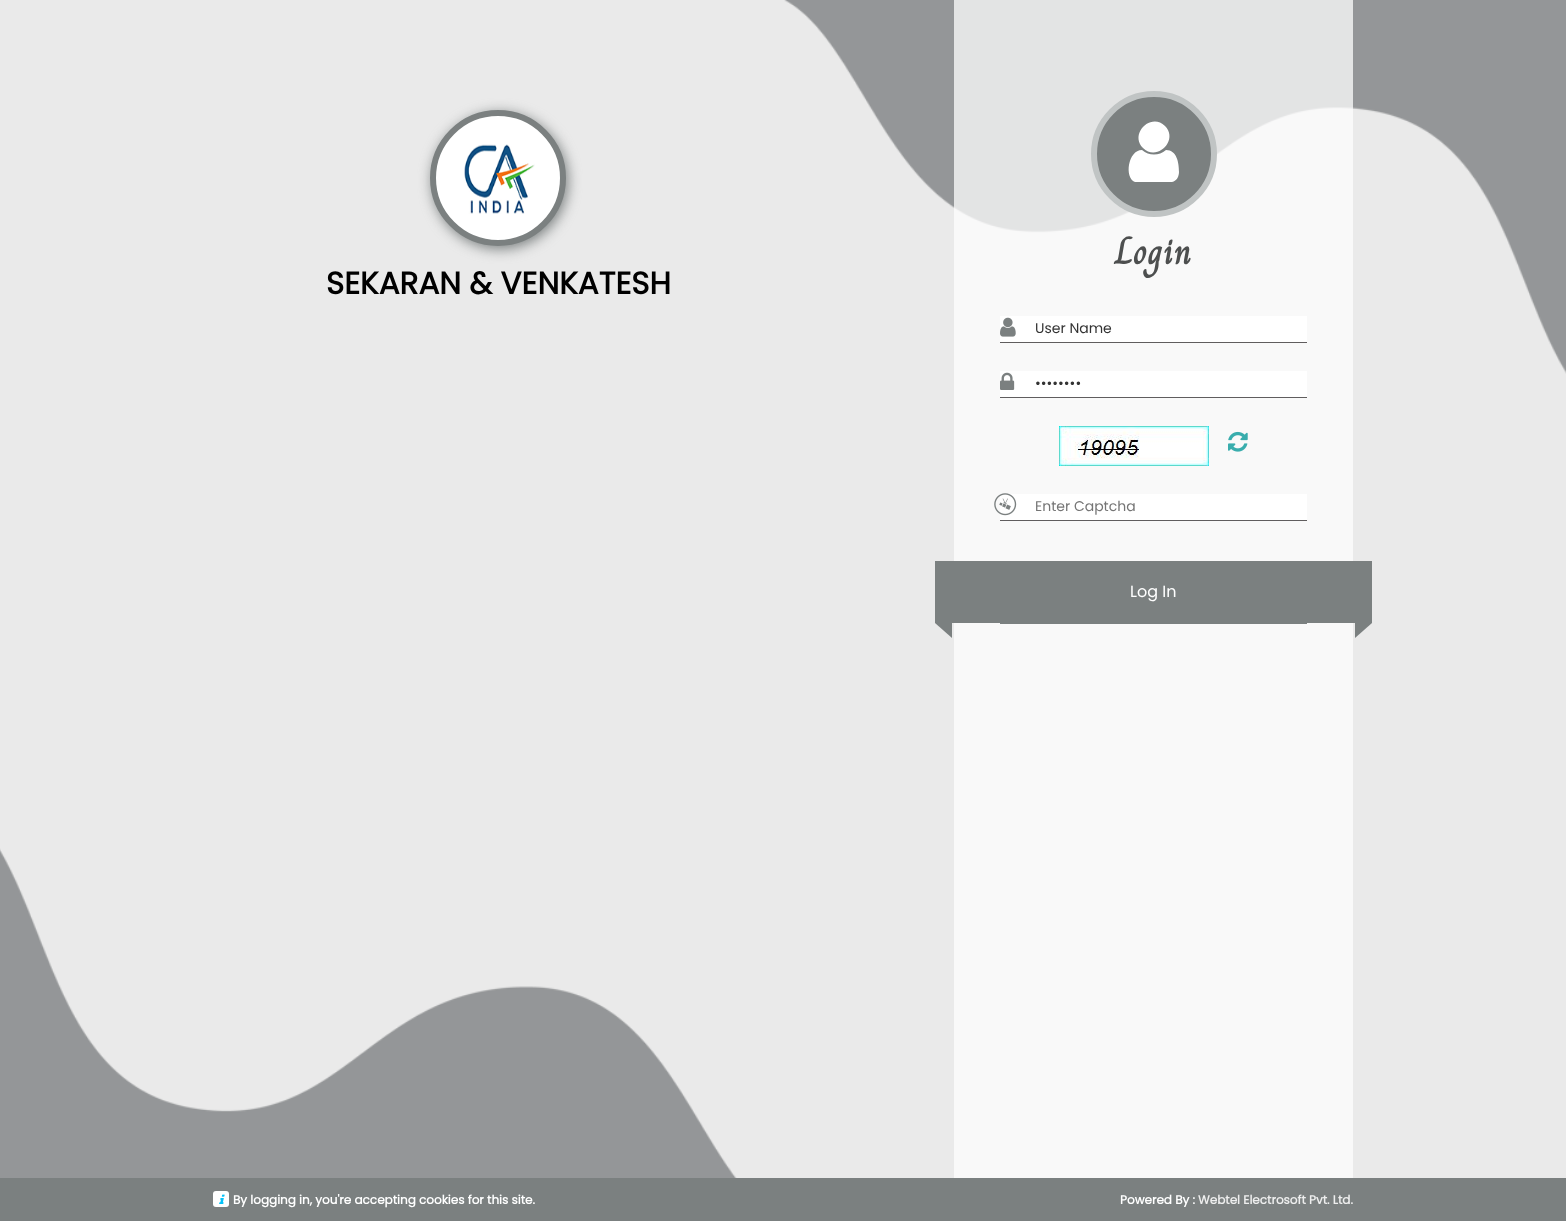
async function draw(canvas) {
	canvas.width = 1566;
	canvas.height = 1221;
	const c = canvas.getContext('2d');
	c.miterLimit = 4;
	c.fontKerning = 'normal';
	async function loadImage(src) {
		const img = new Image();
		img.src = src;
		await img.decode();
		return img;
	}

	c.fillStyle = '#eaeaea';
	c.fillRect(0, 0, 1566, 1221);
	c.drawImage(await loadImage('img1.png'), 0, 0, 1566, 1178);
	c.fillStyle = '#7b8080';
	c.filter = 'blur(6.5px)';
	c.beginPath();
	c.roundRect(432, 113, 136, 136, 68);
	c.fill();
	c.filter = 'none';
	c.fillStyle = '#fff';
	c.beginPath();
	c.arc(498, 178, 65, 0, 2 * Math.PI);
	c.fill();
	c.strokeStyle = '#7b8080';
	c.lineWidth = 6;
	c.stroke();
	c.drawImage(await loadImage('img2.png'), 464, 144, 71, 70);
	c.font = 'bold 31px Poppins';
	c.fillStyle = '#000';
	c.fillText('SEKARAN & VENKATESH', 326, 294);
	c.fillStyle = '#fefefebf';
	c.fillRect(954, 0, 399, 1178);
	c.fillStyle = '#7b8080';
	c.beginPath();
	c.arc(1154, 154, 60, 0, 2 * Math.PI);
	c.fill();
	c.strokeStyle = '#c0c4c4';
	c.stroke();
	c.fillStyle = '#fff';
	c.beginPath();
	c.moveTo(1179, 172);
	c.bezierCurveTo(1179, 176, 1177, 181, 1172, 182);
	c.lineTo(1143, 182);
	c.lineTo(1135, 182);
	c.bezierCurveTo(1124, 178, 1128, 150, 1142, 150);
	c.bezierCurveTo(1149, 156, 1159, 156, 1166, 150);
	c.bezierCurveTo(1177, 150, 1179, 163, 1179, 172);
	c.closePath();
	c.moveTo(1165, 126);
	c.bezierCurveTo(1179, 140, 1157, 162, 1143, 148);
	c.bezierCurveTo(1129, 134, 1151, 112, 1165, 126);
	c.closePath();
	c.fill();
	c.letterSpacing = '1px';
	c.font = 'bold 35px Charm';
	c.fillStyle = '#4d4f4f';
	c.fillText('Login', 1115, 264);
	c.fillStyle = '#fff';
	c.fillRect(1000, 316, 307, 26);
	c.drawImage(await loadImage('img3.png'), 1000, 317, 16, 20);
	c.fillStyle = '#605d5e';
	c.fillRect(1000, 342, 307, 1);
	c.letterSpacing = '0px';
	c.font = '14px Poppins';
	c.fillStyle = '#333';
	c.fillText('User Name', 1035, 333);
	c.fillStyle = '#fff';
	c.fillRect(1000, 371, 307, 26);
	c.drawImage(await loadImage('img4.png'), 1000, 372, 15, 18);
	c.fillStyle = '#605d5e';
	c.fillRect(1000, 397, 307, 1);
	c.fillStyle = '#333';
	c.fillText('••••••••', 1035, 388);
	c.drawImage(await loadImage('img5.png'), 1059, 426, 150, 40);
	c.drawImage(await loadImage('img6.png'), 1228, 431, 20, 21);
	c.fillStyle = '#fff';
	c.fillRect(1000, 494, 307, 26);
	c.drawImage(await loadImage('img7.png'), 994, 493, 23, 23);
	c.fillStyle = '#605d5e';
	c.fillRect(1000, 520, 307, 1);
	c.fillStyle = '#757575';
	c.fillText('Enter Captcha', 1035, 511);
	c.fillStyle = '#7b8080';
	c.fillRect(1000, 561, 307, 63);
	c.fillRect(935, 561, 65, 62);
	c.beginPath();
	c.moveTo(952, 623);
	c.lineTo(952, 638);
	c.lineTo(935, 623);
	c.closePath();
	c.fill();
	c.font = '16px Poppins';
	c.fillStyle = '#fff';
	c.fillText('Log In', 1130, 597);
	c.fillStyle = '#7b8080';
	c.fillRect(1307, 561, 65, 62);
	c.beginPath();
	c.moveTo(1355, 638);
	c.lineTo(1355, 623);
	c.lineTo(1372, 623);
	c.closePath();
	c.fill();
	c.fillRect(0, 1178, 1566, 43);
	c.fillStyle = '#fff';
	c.beginPath();
	c.roundRect(213, 1191, 16, 16, 3);
	c.fill();
	c.drawImage(await loadImage('img8.png'), 219, 1194, 6, 10);
	c.font = 'bold 12px Poppins';
	c.fillText('By logging in, you\'re accepting cookies for this site.', 233, 1204);
	c.fillText('Powered By :', 1120, 1204);
	c.fillStyle = '#eee';
	c.fillText('Webtel Electrosoft Pvt. Ltd.', 1198, 1204);
}

draw(document.querySelector('canvas'));
